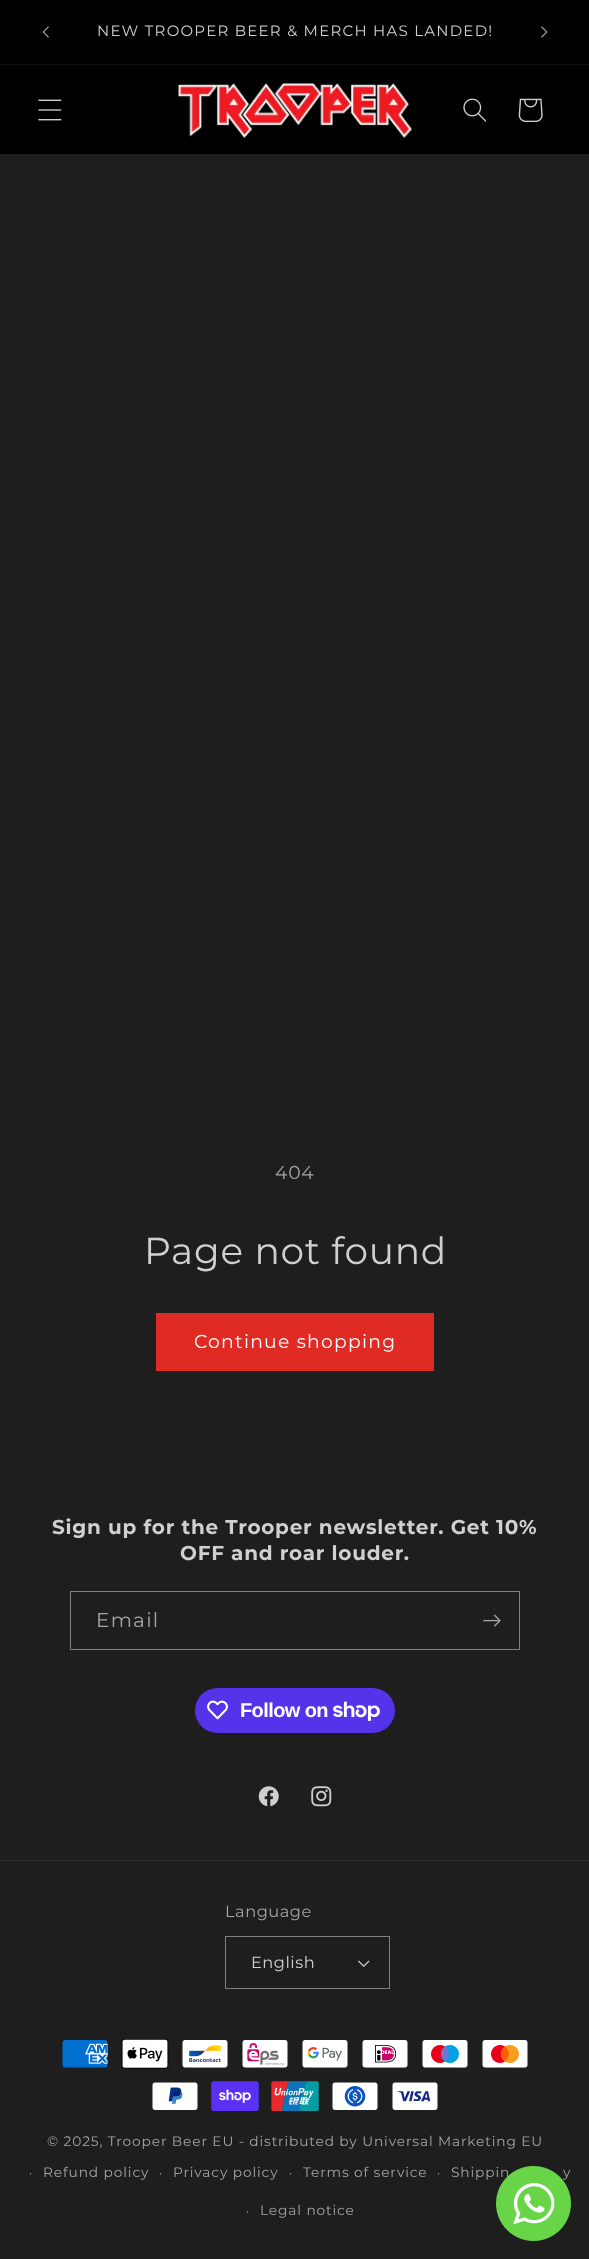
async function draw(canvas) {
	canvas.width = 589;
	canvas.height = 2259;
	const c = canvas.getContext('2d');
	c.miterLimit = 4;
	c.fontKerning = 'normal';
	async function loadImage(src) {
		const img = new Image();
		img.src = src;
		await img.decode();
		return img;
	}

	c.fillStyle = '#1e1e1e';
	c.fillRect(0, 0, 589, 2259);
	c.fillStyle = '#000';
	c.fillRect(0, 0, 589, 64);
	c.fillStyle = '#111';
	c.fillRect(0, 64, 589, 1);
	c.drawImage(await loadImage('img1.png'), 42, 26, 7, 12);
	c.letterSpacing = '1.25px';
	c.font = '15px Montserrat';
	c.fillStyle = '#d0d0d0';
	c.fillText('NEW TROOPER BEER & MERCH HAS LANDED!', 97, 36);
	c.drawImage(await loadImage('img2.png'), 541, 26, 7, 12);
	c.fillStyle = '#000';
	c.fillRect(0, 65, 589, 89);
	c.drawImage(await loadImage('img3.png'), 38, 99, 24, 22);
	c.drawImage(await loadImage('img4.png'), 177, 81, 236, 59);
	c.drawImage(await loadImage('img5.png'), 463, 98, 24, 24);
	c.drawImage(await loadImage('img6.png'), 518, 98, 25, 24);
	c.letterSpacing = '0.75px';
	c.font = '18.75px Montserrat';
	c.fillStyle = '#a4a4a4';
	c.fillText('404', 275, 1179);
	c.font = '37.5px Montserrat';
	c.fillStyle = '#d0d0d0';
	c.fillText('Page not found', 144, 1264);
	c.fillStyle = '#e02a24';
	c.fillRect(156, 1313, 278, 58);
	c.letterSpacing = '1.25px';
	c.font = '18.75px Montserrat';
	c.fillStyle = '#fff';
	c.fillText('Continue shopping', 194, 1348);
	c.letterSpacing = '0.75px';
	c.font = 'bold 20px Montserrat';
	c.fillStyle = '#d0d0d0';
	c.fillText('Sign up for the Trooper newsletter. Get 10%', 52, 1534);
	c.fillText('OFF and roar louder.', 180, 1560);
	c.strokeStyle = '#808080';
	c.strokeRect(70.5, 1591.5, 449, 58);
	c.letterSpacing = '1.25px';
	c.font = '20px Montserrat';
	c.fillStyle = '#a4a4a4';
	c.fillText('Email', 96, 1627);
	c.drawImage(await loadImage('img7.png'), 483, 1614, 18, 13);
	c.fillStyle = '#5433eb';
	c.beginPath();
	c.roundRect(195, 1688, 200, 45, 22.5);
	c.fill();
	c.drawImage(await loadImage('img8.png'), 207, 1700, 21, 20);
	c.letterSpacing = '-0.6px';
	c.font = 'bold 20px Liberation Sans';
	c.fillStyle = '#fff';
	c.fillText('Follow on', 240, 1717);
	c.drawImage(await loadImage('img9.png'), 333, 1701, 47, 20);
	c.drawImage(await loadImage('img10.png'), 258, 1786, 21, 21);
	c.drawImage(await loadImage('img11.png'), 311, 1786, 21, 21);
	c.fillStyle = '#2c2c2c';
	c.fillRect(0, 1860, 589, 1);
	c.letterSpacing = '0.5px';
	c.font = '16.25px Montserrat';
	c.fillStyle = '#a4a4a4';
	c.fillText('Language', 225, 1917);
	c.drawImage(await loadImage('img12.png'), 358, 1960, 12, 7);
	c.strokeRect(225.5, 1936.5, 164, 52);
	c.fillStyle = '#d0d0d0';
	c.fillText('English', 251, 1968);
	c.drawImage(await loadImage('img13.png'), 62, 2040, 46, 28);
	c.drawImage(await loadImage('img14.png'), 121, 2039, 48, 30);
	c.drawImage(await loadImage('img15.png'), 182, 2040, 46, 28);
	c.drawImage(await loadImage('img16.png'), 242, 2040, 46, 28);
	c.drawImage(await loadImage('img17.png'), 302, 2040, 46, 28);
	c.drawImage(await loadImage('img18.png'), 362, 2040, 46, 28);
	c.drawImage(await loadImage('img19.png'), 422, 2040, 46, 28);
	c.drawImage(await loadImage('img20.png'), 482, 2040, 46, 28);
	c.drawImage(await loadImage('img21.png'), 152, 2082, 46, 28);
	c.drawImage(await loadImage('img22.png'), 211, 2081, 48, 30);
	c.drawImage(await loadImage('img23.png'), 271, 2081, 48, 30);
	c.drawImage(await loadImage('img24.png'), 332, 2082, 46, 28);
	c.drawImage(await loadImage('img25.png'), 392, 2082, 46, 28);
	c.letterSpacing = '0.88px';
	c.font = '13.75px Montserrat';
	c.fillStyle = '#a4a4a4';
	c.fillText('© 2025, Trooper Beer EU - distributed by Universal Marketing EU', 47, 2146);
	c.font = '12px Montserrat';
	c.fillText('·', 29, 2177);
	c.font = '13.75px Montserrat';
	c.fillText('Refund policy', 43, 2177);
	c.font = '12px Montserrat';
	c.fillText('·', 159, 2177);
	c.font = '13.75px Montserrat';
	c.fillText('Privacy policy', 173, 2177);
	c.font = '12px Montserrat';
	c.fillText('·', 289, 2177);
	c.font = '13.75px Montserrat';
	c.fillText('Terms of service', 303, 2177);
	c.font = '12px Montserrat';
	c.fillText('·', 437, 2177);
	c.font = '13.75px Montserrat';
	c.fillText('Shippin', 451, 2177);
	c.fillText('y', 563, 2177);
	c.font = '12px Montserrat';
	c.fillText('·', 246, 2215);
	c.font = '13.75px Montserrat';
	c.fillText('Legal notice', 260, 2215);
	c.drawImage(await loadImage('img26.png'), 496, 2166, 75, 75);
}

draw(document.querySelector('canvas'));
